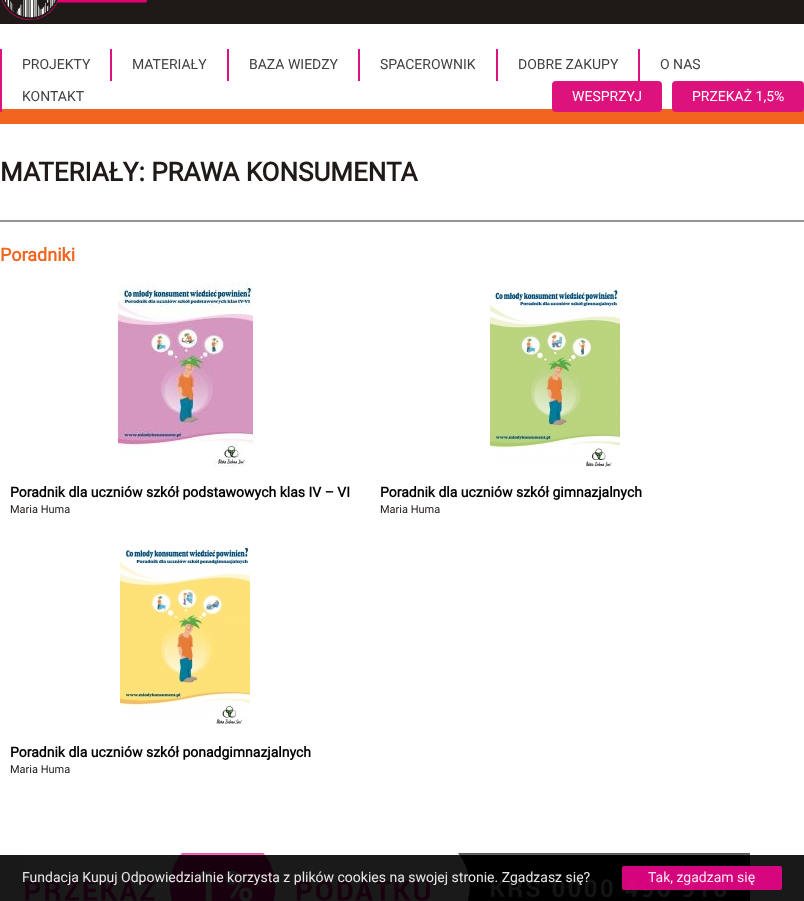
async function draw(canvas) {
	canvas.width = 804;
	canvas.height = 901;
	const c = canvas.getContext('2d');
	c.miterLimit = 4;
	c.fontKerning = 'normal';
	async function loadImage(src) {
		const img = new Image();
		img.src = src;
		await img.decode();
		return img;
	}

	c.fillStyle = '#fff';
	c.fillRect(0, 0, 804, 901);
	c.fillStyle = '#191919';
	c.fillRect(0, 855, 804, 46);
	c.fillStyle = '#1f1a17';
	c.fillRect(0, 0, 804, 24);
	c.drawImage(await loadImage('img1.png'), 2, 0, 145, 20);
	c.fillStyle = '#f16520';
	c.fillRect(0, 109, 804, 15);
	c.fillStyle = '#dd127d';
	c.fillRect(0, 49, 2, 63);
	c.font = '14px Roboto';
	c.fillStyle = '#414141';
	c.fillText('PROJEKTY', 22, 69);
	c.fillStyle = '#dd127d';
	c.fillRect(110, 49, 2, 32);
	c.fillStyle = '#414141';
	c.fillText('MATERIAŁY', 132, 69);
	c.fillStyle = '#dd127d';
	c.fillRect(227, 49, 2, 32);
	c.fillStyle = '#414141';
	c.fillText('BAZA WIEDZY', 249, 69);
	c.fillStyle = '#dd127d';
	c.fillRect(358, 49, 2, 32);
	c.fillStyle = '#414141';
	c.fillText('SPACEROWNIK', 380, 69);
	c.fillStyle = '#dd127d';
	c.fillRect(496, 49, 2, 32);
	c.fillStyle = '#414141';
	c.fillText('DOBRE ZAKUPY', 518, 69);
	c.fillStyle = '#dd127d';
	c.fillRect(638, 49, 2, 32);
	c.fillStyle = '#414141';
	c.fillText('O NAS', 660, 69);
	c.fillText('KONTAKT', 22, 101);
	c.fillStyle = '#dd127d';
	c.beginPath();
	c.roundRect(552, 81, 110, 31, 4);
	c.fill();
	c.fillStyle = '#fff';
	c.fillText('WESPRZYJ', 572, 101);
	c.fillStyle = '#dd127d';
	c.beginPath();
	c.roundRect(672, 81, 132, 31, 4);
	c.fill();
	c.fillStyle = '#fff';
	c.fillText('PRZEKAŻ 1,5%', 692, 101);
	c.font = 'bold 26px Roboto';
	c.fillStyle = '#1f1a17';
	c.fillText('MATERIAŁY: PRAWA KONSUMENTA', 0, 181);
	c.fillStyle = '#959595';
	c.fillRect(0, 220, 804, 2);
	c.font = 'bold 18px Roboto';
	c.fillStyle = '#f16520';
	c.fillText('Poradniki', 0, 261);
	c.drawImage(await loadImage('img2.png'), 118, 283, 135, 184);
	c.font = 'bold 14px Roboto';
	c.fillStyle = '#000';
	c.fillText('Poradnik dla uczniów szkół podstawowych klas IV – VI', 10, 497);
	c.font = '11px Roboto';
	c.fillStyle = '#1f1a17';
	c.fillText('Maria Huma', 10, 513);
	c.drawImage(await loadImage('img3.png'), 490, 289, 130, 178);
	c.font = 'bold 14px Roboto';
	c.fillStyle = '#000';
	c.fillText('Poradnik dla uczniów szkół gimnazjalnych', 380, 497);
	c.font = '11px Roboto';
	c.fillStyle = '#1f1a17';
	c.fillText('Maria Huma', 380, 513);
	c.drawImage(await loadImage('img4.png'), 120, 546, 130, 178);
	c.font = 'bold 14px Roboto';
	c.fillStyle = '#000';
	c.fillText('Poradnik dla uczniów szkół ponadgimnazjalnych', 10, 757);
	c.font = '11px Roboto';
	c.fillStyle = '#1f1a17';
	c.fillText('Maria Huma', 10, 773);
	c.drawImage(await loadImage('img5.png'), 25, 853, 725, 48);
	c.save();
	c.beginPath();
	c.rect(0, 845, 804, 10);
	c.clip();
	c.fillStyle = '#ffffffe6';
	c.filter = 'blur(5px)';
	c.beginPath();
	c.rect(0, 855, 804, 46);
	c.fill();
	c.filter = 'none';
	c.restore();
	c.font = '14px Roboto';
	c.fillStyle = '#e8e7e7';
	c.fillText('Fundacja Kupuj Odpowiedzialnie korzysta z plików cookies na swojej stronie. Zgadzasz się?', 22, 882);
	c.fillStyle = '#eb0689e6';
	c.beginPath();
	c.roundRect(622, 866, 160, 24, 2);
	c.fill();
	c.fillStyle = '#fbe6f2';
	c.fillText('Tak, zgadzam się', 648, 882);
}

draw(document.querySelector('canvas'));
